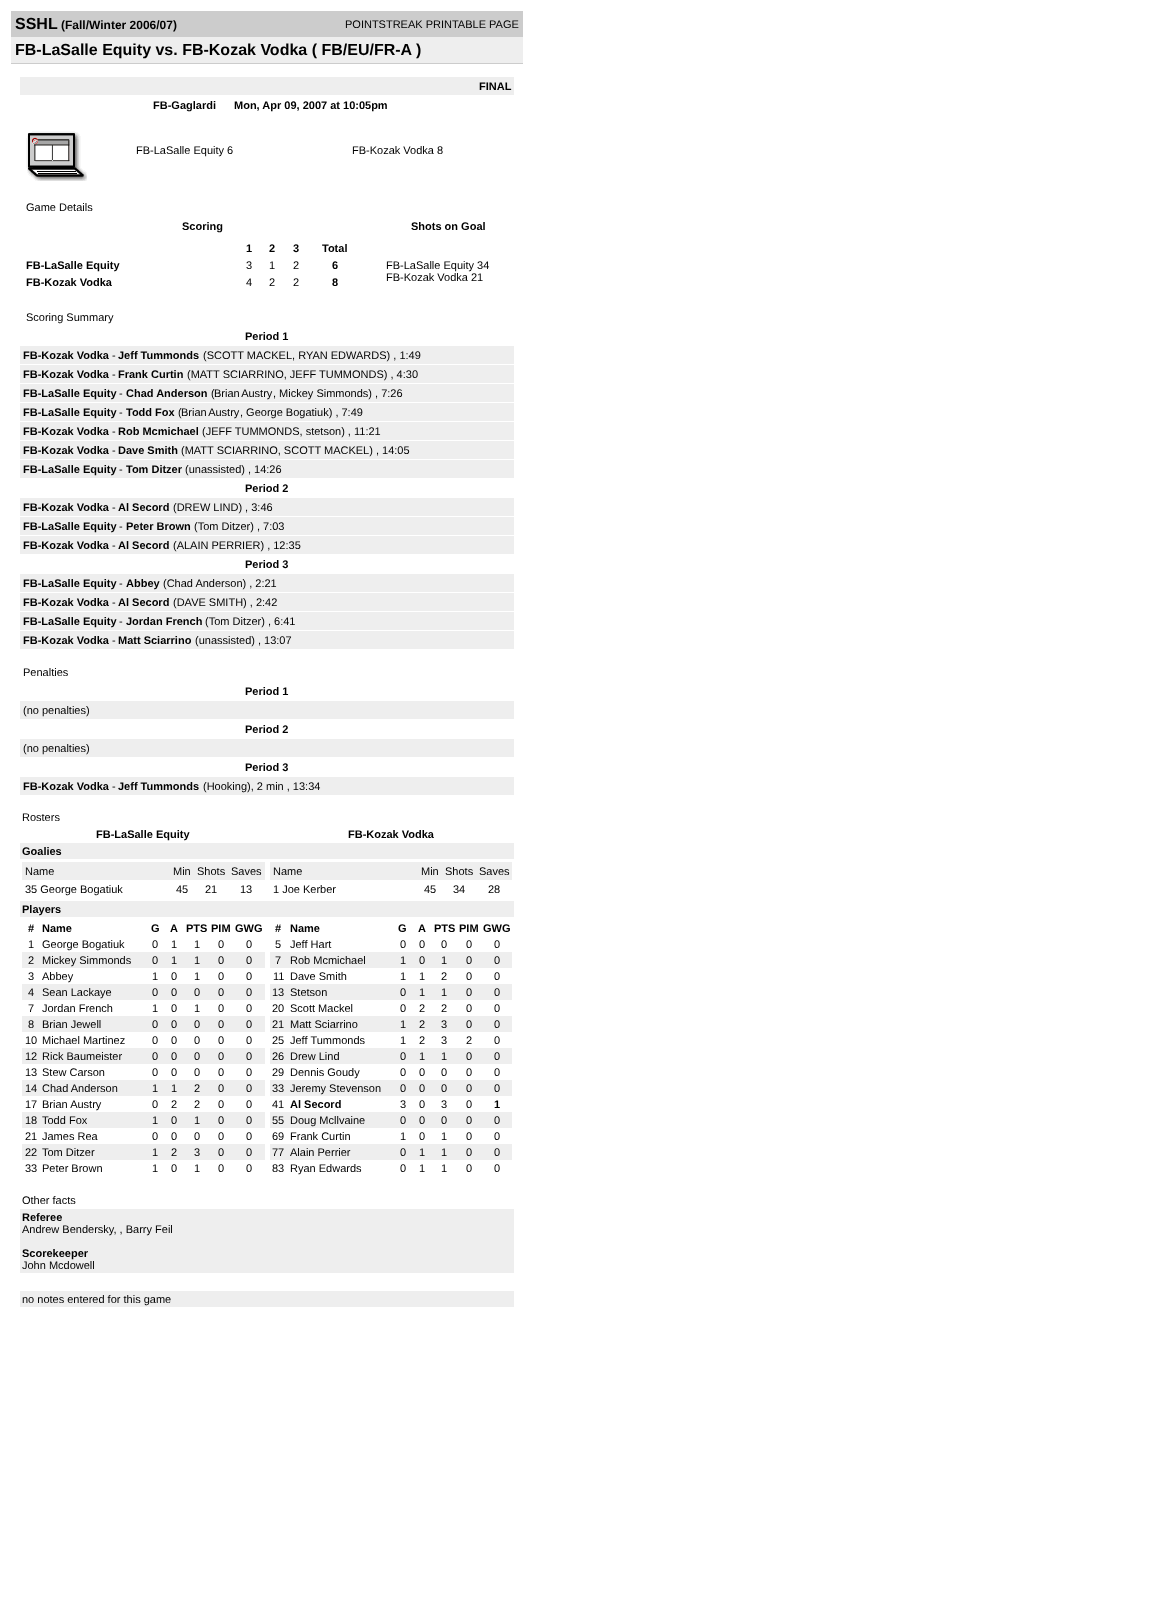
async function draw(canvas) {
	canvas.width = 1157;
	canvas.height = 1614;
	const c = canvas.getContext('2d');
	c.miterLimit = 4;
	c.fontKerning = 'normal';
	async function loadImage(src) {
		const img = new Image();
		img.src = src;
		await img.decode();
		return img;
	}

	c.fillStyle = '#fff';
	c.fillRect(0, 0, 1157, 1614);
	c.fillStyle = '#ccc';
	c.fillRect(11, 11, 512, 26);
	c.font = 'bold 16px Liberation Sans';
	c.fillStyle = '#000';
	c.fillText('SSHL', 15, 29);
	c.font = 'bold 12px Liberation Sans';
	c.fillText('(Fall/Winter 2006/07)', 61, 29);
	c.font = '11px Liberation Sans';
	c.fillText('POINTSTREAK PRINTABLE PAGE', 345, 28);
	c.fillStyle = '#eee';
	c.fillRect(11, 37, 512, 26);
	c.font = 'bold 16px Liberation Sans';
	c.fillStyle = '#000';
	c.fillText('FB-LaSalle Equity vs. FB-Kozak Vodka ( FB/EU/FR-A )', 15, 55);
	c.fillStyle = '#ccc';
	c.fillRect(11, 63, 512, 1);
	c.fillStyle = '#eee';
	c.fillRect(20, 77, 494, 18);
	c.font = 'bold 11px Liberation Sans';
	c.fillStyle = '#000';
	for (const [text, x, y] of [
		['FINAL', 479, 90],
		['FB-Gaglardi', 153, 109],
		['Mon, Apr 09, 2007 at 10:05pm', 234, 109],
	]) {
		c.fillText(text, x, y);
	}
	c.drawImage(await loadImage('img1.png'), 26, 131, 61, 50);
	c.font = '11px Liberation Sans';
	for (const [text, x, y] of [
		['FB-LaSalle Equity 6', 136, 154],
		['FB-Kozak Vodka 8', 352, 154],
		['Game Details', 26, 211],
	]) {
		c.fillText(text, x, y);
	}
	c.font = 'bold 11px Liberation Sans';
	for (const [text, x, y] of [
		['Scoring', 182, 230],
		['Shots on Goal', 411, 230],
		['1', 246, 252],
		['2', 269, 252],
		['3', 293, 252],
		['Total', 322, 252],
		['FB-LaSalle Equity', 26, 269],
	]) {
		c.fillText(text, x, y);
	}
	c.font = '11px Liberation Sans';
	for (const [text, x, y] of [
		['3', 246, 269],
		['1', 269, 269],
		['2', 293, 269],
	]) {
		c.fillText(text, x, y);
	}
	c.font = 'bold 11px Liberation Sans';
	c.fillText('6', 332, 269);
	c.fillText('FB-Kozak Vodka', 26, 286);
	c.font = '11px Liberation Sans';
	for (const [text, x, y] of [
		['4', 246, 286],
		['2', 269, 286],
		['2', 293, 286],
	]) {
		c.fillText(text, x, y);
	}
	c.font = 'bold 11px Liberation Sans';
	c.fillText('8', 332, 286);
	c.font = '11px Liberation Sans';
	for (const [text, x, y] of [
		['FB-LaSalle Equity 34', 386, 269],
		['FB-Kozak Vodka 21', 386, 281],
		['Scoring Summary', 26, 321],
	]) {
		c.fillText(text, x, y);
	}
	c.font = 'bold 11px Liberation Sans';
	c.fillText('Period 1', 245, 340);
	c.fillStyle = '#eee';
	c.fillRect(20, 346, 494, 18);
	c.fillStyle = '#000';
	c.fillText('FB-Kozak Vodka', 23, 359);
	c.font = '11px Liberation Sans';
	c.fillText('-', 112, 359);
	c.font = 'bold 11px Liberation Sans';
	c.fillText('Jeff Tummonds', 118, 359);
	c.font = '11px Liberation Sans';
	c.fillText('(SCOTT MACKEL, RYAN EDWARDS) , 1:49', 203, 359);
	c.fillStyle = '#eee';
	c.fillRect(20, 365, 494, 18);
	c.font = 'bold 11px Liberation Sans';
	c.fillStyle = '#000';
	c.fillText('FB-Kozak Vodka', 23, 378);
	c.font = '11px Liberation Sans';
	c.fillText('-', 112, 378);
	c.font = 'bold 11px Liberation Sans';
	c.fillText('Frank Curtin', 118, 378);
	c.font = '11px Liberation Sans';
	c.fillText('(MATT SCIARRINO, JEFF TUMMONDS) , 4:30', 187, 378);
	c.fillStyle = '#eee';
	c.fillRect(20, 384, 494, 18);
	c.font = 'bold 11px Liberation Sans';
	c.fillStyle = '#000';
	c.fillText('FB-LaSalle Equity', 23, 397);
	c.font = '11px Liberation Sans';
	c.fillText('-', 119, 397);
	c.font = 'bold 11px Liberation Sans';
	c.fillText('Chad Anderson', 126, 397);
	c.font = '11px Liberation Sans';
	c.fillText('(', 211, 397);
	c.wordSpacing = '-1px';
	c.fillText('Brian Austry', 214, 397);
	c.wordSpacing = '0px';
	c.fillText(', Mickey Simmonds) , 7:26', 273, 397);
	c.fillStyle = '#eee';
	c.fillRect(20, 403, 494, 18);
	c.font = 'bold 11px Liberation Sans';
	c.fillStyle = '#000';
	c.fillText('FB-LaSalle Equity', 23, 416);
	c.font = '11px Liberation Sans';
	c.fillText('-', 119, 416);
	c.font = 'bold 11px Liberation Sans';
	c.fillText('Todd Fox', 126, 416);
	c.font = '11px Liberation Sans';
	c.fillText('(', 178, 416);
	c.wordSpacing = '-1px';
	c.fillText('Brian Austry', 181, 416);
	c.wordSpacing = '0px';
	c.fillText(', George Bogatiuk) , 7:49', 240, 416);
	c.fillStyle = '#eee';
	c.fillRect(20, 422, 494, 18);
	c.font = 'bold 11px Liberation Sans';
	c.fillStyle = '#000';
	c.fillText('FB-Kozak Vodka', 23, 435);
	c.font = '11px Liberation Sans';
	c.fillText('-', 112, 435);
	c.font = 'bold 11px Liberation Sans';
	c.fillText('Rob Mcmichael', 118, 435);
	c.font = '11px Liberation Sans';
	c.fillText('(JEFF TUMMONDS, stetson) , 11:21', 202, 435);
	c.fillStyle = '#eee';
	c.fillRect(20, 441, 494, 18);
	c.font = 'bold 11px Liberation Sans';
	c.fillStyle = '#000';
	c.fillText('FB-Kozak Vodka', 23, 454);
	c.font = '11px Liberation Sans';
	c.fillText('-', 112, 454);
	c.font = 'bold 11px Liberation Sans';
	c.fillText('Dave Smith', 118, 454);
	c.font = '11px Liberation Sans';
	c.fillText('(MATT SCIARRINO, SCOTT MACKEL) , 14:05', 181, 454);
	c.fillStyle = '#eee';
	c.fillRect(20, 460, 494, 18);
	c.font = 'bold 11px Liberation Sans';
	c.fillStyle = '#000';
	c.fillText('FB-LaSalle Equity', 23, 473);
	c.font = '11px Liberation Sans';
	c.fillText('-', 119, 473);
	c.font = 'bold 11px Liberation Sans';
	c.fillText('Tom Ditzer', 126, 473);
	c.font = '11px Liberation Sans';
	c.fillText('(unassisted) , 14:26', 185, 473);
	c.font = 'bold 11px Liberation Sans';
	c.fillText('Period 2', 245, 492);
	c.fillStyle = '#eee';
	c.fillRect(20, 498, 494, 18);
	c.fillStyle = '#000';
	c.fillText('FB-Kozak Vodka', 23, 511);
	c.font = '11px Liberation Sans';
	c.fillText('-', 112, 511);
	c.font = 'bold 11px Liberation Sans';
	c.fillText('Al Secord', 118, 511);
	c.font = '11px Liberation Sans';
	c.fillText('(DREW LIND) , 3:46', 173, 511);
	c.fillStyle = '#eee';
	c.fillRect(20, 517, 494, 18);
	c.font = 'bold 11px Liberation Sans';
	c.fillStyle = '#000';
	c.fillText('FB-LaSalle Equity', 23, 530);
	c.font = '11px Liberation Sans';
	c.fillText('-', 119, 530);
	c.font = 'bold 11px Liberation Sans';
	c.fillText('Peter Brown', 126, 530);
	c.font = '11px Liberation Sans';
	c.fillText('(Tom Ditzer) , 7:03', 194, 530);
	c.fillStyle = '#eee';
	c.fillRect(20, 536, 494, 18);
	c.font = 'bold 11px Liberation Sans';
	c.fillStyle = '#000';
	c.fillText('FB-Kozak Vodka', 23, 549);
	c.font = '11px Liberation Sans';
	c.fillText('-', 112, 549);
	c.font = 'bold 11px Liberation Sans';
	c.fillText('Al Secord', 118, 549);
	c.font = '11px Liberation Sans';
	c.fillText('(ALAIN PERRIER) , 12:35', 173, 549);
	c.font = 'bold 11px Liberation Sans';
	c.fillText('Period 3', 245, 568);
	c.fillStyle = '#eee';
	c.fillRect(20, 574, 494, 18);
	c.fillStyle = '#000';
	c.fillText('FB-LaSalle Equity', 23, 587);
	c.font = '11px Liberation Sans';
	c.fillText('-', 119, 587);
	c.font = 'bold 11px Liberation Sans';
	c.fillText('Abbey', 126, 587);
	c.font = '11px Liberation Sans';
	c.fillText('(Chad Anderson) , 2:21', 163, 587);
	c.fillStyle = '#eee';
	c.fillRect(20, 593, 494, 18);
	c.font = 'bold 11px Liberation Sans';
	c.fillStyle = '#000';
	c.fillText('FB-Kozak Vodka', 23, 606);
	c.font = '11px Liberation Sans';
	c.fillText('-', 112, 606);
	c.font = 'bold 11px Liberation Sans';
	c.fillText('Al Secord', 118, 606);
	c.font = '11px Liberation Sans';
	c.fillText('(DAVE SMITH) , 2:42', 173, 606);
	c.fillStyle = '#eee';
	c.fillRect(20, 612, 494, 18);
	c.font = 'bold 11px Liberation Sans';
	c.fillStyle = '#000';
	c.fillText('FB-LaSalle Equity', 23, 625);
	c.font = '11px Liberation Sans';
	c.fillText('-', 119, 625);
	c.font = 'bold 11px Liberation Sans';
	c.fillText('Jordan French', 126, 625);
	c.font = '11px Liberation Sans';
	c.fillText('(Tom Ditzer) , 6:41', 205, 625);
	c.fillStyle = '#eee';
	c.fillRect(20, 631, 494, 18);
	c.font = 'bold 11px Liberation Sans';
	c.fillStyle = '#000';
	c.fillText('FB-Kozak Vodka', 23, 644);
	c.font = '11px Liberation Sans';
	c.fillText('-', 112, 644);
	c.font = 'bold 11px Liberation Sans';
	c.fillText('Matt Sciarrino', 118, 644);
	c.font = '11px Liberation Sans';
	c.fillText('(unassisted) , 13:07', 195, 644);
	c.fillText('Penalties', 23, 676);
	c.font = 'bold 11px Liberation Sans';
	c.fillText('Period 1', 245, 695);
	c.fillStyle = '#eee';
	c.fillRect(20, 701, 494, 18);
	c.font = '11px Liberation Sans';
	c.fillStyle = '#000';
	c.fillText('(no penalties)', 23, 714);
	c.font = 'bold 11px Liberation Sans';
	c.fillText('Period 2', 245, 733);
	c.fillStyle = '#eee';
	c.fillRect(20, 739, 494, 18);
	c.font = '11px Liberation Sans';
	c.fillStyle = '#000';
	c.fillText('(no penalties)', 23, 752);
	c.font = 'bold 11px Liberation Sans';
	c.fillText('Period 3', 245, 771);
	c.fillStyle = '#eee';
	c.fillRect(20, 777, 494, 18);
	c.fillStyle = '#000';
	c.fillText('FB-Kozak Vodka', 23, 790);
	c.font = '11px Liberation Sans';
	c.fillText('-', 112, 790);
	c.font = 'bold 11px Liberation Sans';
	c.fillText('Jeff Tummonds', 118, 790);
	c.font = '11px Liberation Sans';
	c.fillText('(Hooking), 2 min , 13:34', 203, 790);
	c.fillText('Rosters', 22, 821);
	c.font = 'bold 11px Liberation Sans';
	c.fillText('FB-LaSalle Equity', 96, 838);
	c.fillText('FB-Kozak Vodka', 348, 838);
	c.fillStyle = '#eee';
	c.fillRect(20, 843, 494, 16);
	c.fillStyle = '#000';
	c.fillText('Goalies', 22, 855);
	c.fillStyle = '#eee';
	c.fillRect(22, 862, 243, 18);
	c.font = '11px Liberation Sans';
	c.fillStyle = '#000';
	for (const [text, x, y] of [
		['Name', 25, 875],
		['Min', 173, 875],
		['Shots', 197, 875],
		['Saves', 231, 875],
		['35 George Bogatiuk', 25, 893],
		['45', 176, 893],
		['21', 205, 893],
		['13', 240, 893],
	]) {
		c.fillText(text, x, y);
	}
	c.fillStyle = '#eee';
	c.fillRect(270, 862, 242, 18);
	c.fillStyle = '#000';
	for (const [text, x, y] of [
		['Name', 273, 875],
		['Min', 421, 875],
		['Shots', 445, 875],
		['Saves', 479, 875],
		['1 Joe Kerber', 273, 893],
		['45', 424, 893],
		['34', 453, 893],
		['28', 488, 893],
	]) {
		c.fillText(text, x, y);
	}
	c.fillStyle = '#eee';
	c.fillRect(20, 901, 494, 16);
	c.font = 'bold 11px Liberation Sans';
	c.fillStyle = '#000';
	for (const [text, x, y] of [
		['Players', 22, 913],
		['#', 28, 932],
		['Name', 42, 932],
		['G', 151, 932],
		['A', 170, 932],
		['PTS', 186, 932],
		['PIM', 211, 932],
		['GWG', 235, 932],
	]) {
		c.fillText(text, x, y);
	}
	c.font = '11px Liberation Sans';
	for (const [text, x, y] of [
		['1', 28, 948],
		['George Bogatiuk', 42, 948],
		['0', 152, 948],
		['1', 171, 948],
		['1', 194, 948],
		['0', 218, 948],
		['0', 246, 948],
	]) {
		c.fillText(text, x, y);
	}
	c.fillStyle = '#eee';
	c.fillRect(22, 952, 243, 16);
	c.fillStyle = '#000';
	for (const [text, x, y] of [
		['2', 28, 964],
		['Mickey Simmonds', 42, 964],
		['0', 152, 964],
		['1', 171, 964],
		['1', 194, 964],
		['0', 218, 964],
		['0', 246, 964],
		['3', 28, 980],
		['Abbey', 42, 980],
		['1', 152, 980],
		['0', 171, 980],
		['1', 194, 980],
		['0', 218, 980],
		['0', 246, 980],
	]) {
		c.fillText(text, x, y);
	}
	c.fillStyle = '#eee';
	c.fillRect(22, 984, 243, 16);
	c.fillStyle = '#000';
	for (const [text, x, y] of [
		['4', 28, 996],
		['Sean Lackaye', 42, 996],
		['0', 152, 996],
		['0', 171, 996],
		['0', 194, 996],
		['0', 218, 996],
		['0', 246, 996],
		['7', 28, 1012],
		['Jordan French', 42, 1012],
		['1', 152, 1012],
		['0', 171, 1012],
		['1', 194, 1012],
		['0', 218, 1012],
		['0', 246, 1012],
	]) {
		c.fillText(text, x, y);
	}
	c.fillStyle = '#eee';
	c.fillRect(22, 1016, 243, 16);
	c.fillStyle = '#000';
	for (const [text, x, y] of [
		['8', 28, 1028],
		['Brian Jewell', 42, 1028],
		['0', 152, 1028],
		['0', 171, 1028],
		['0', 194, 1028],
		['0', 218, 1028],
		['0', 246, 1028],
		['10', 25, 1044],
		['Michael Martinez', 42, 1044],
		['0', 152, 1044],
		['0', 171, 1044],
		['0', 194, 1044],
		['0', 218, 1044],
		['0', 246, 1044],
	]) {
		c.fillText(text, x, y);
	}
	c.fillStyle = '#eee';
	c.fillRect(22, 1048, 243, 16);
	c.fillStyle = '#000';
	for (const [text, x, y] of [
		['12', 25, 1060],
		['Rick Baumeister', 42, 1060],
		['0', 152, 1060],
		['0', 171, 1060],
		['0', 194, 1060],
		['0', 218, 1060],
		['0', 246, 1060],
		['13', 25, 1076],
		['Stew Carson', 42, 1076],
		['0', 152, 1076],
		['0', 171, 1076],
		['0', 194, 1076],
		['0', 218, 1076],
		['0', 246, 1076],
	]) {
		c.fillText(text, x, y);
	}
	c.fillStyle = '#eee';
	c.fillRect(22, 1080, 243, 16);
	c.fillStyle = '#000';
	for (const [text, x, y] of [
		['14', 25, 1092],
		['Chad Anderson', 42, 1092],
		['1', 152, 1092],
		['1', 171, 1092],
		['2', 194, 1092],
		['0', 218, 1092],
		['0', 246, 1092],
		['17', 25, 1108],
		['Brian Austry', 42, 1108],
		['0', 152, 1108],
		['2', 171, 1108],
		['2', 194, 1108],
		['0', 218, 1108],
		['0', 246, 1108],
	]) {
		c.fillText(text, x, y);
	}
	c.fillStyle = '#eee';
	c.fillRect(22, 1112, 243, 16);
	c.fillStyle = '#000';
	for (const [text, x, y] of [
		['18', 25, 1124],
		['Todd Fox', 42, 1124],
		['1', 152, 1124],
		['0', 171, 1124],
		['1', 194, 1124],
		['0', 218, 1124],
		['0', 246, 1124],
		['21', 25, 1140],
		['James Rea', 42, 1140],
		['0', 152, 1140],
		['0', 171, 1140],
		['0', 194, 1140],
		['0', 218, 1140],
		['0', 246, 1140],
	]) {
		c.fillText(text, x, y);
	}
	c.fillStyle = '#eee';
	c.fillRect(22, 1144, 243, 16);
	c.fillStyle = '#000';
	for (const [text, x, y] of [
		['22', 25, 1156],
		['Tom Ditzer', 42, 1156],
		['1', 152, 1156],
		['2', 171, 1156],
		['3', 194, 1156],
		['0', 218, 1156],
		['0', 246, 1156],
		['33', 25, 1172],
		['Peter Brown', 42, 1172],
		['1', 152, 1172],
		['0', 171, 1172],
		['1', 194, 1172],
		['0', 218, 1172],
		['0', 246, 1172],
	]) {
		c.fillText(text, x, y);
	}
	c.font = 'bold 11px Liberation Sans';
	for (const [text, x, y] of [
		['#', 275, 932],
		['Name', 290, 932],
		['G', 398, 932],
		['A', 418, 932],
		['PTS', 434, 932],
		['PIM', 459, 932],
		['GWG', 483, 932],
	]) {
		c.fillText(text, x, y);
	}
	c.font = '11px Liberation Sans';
	for (const [text, x, y] of [
		['5', 275, 948],
		['Jeff Hart', 290, 948],
		['0', 400, 948],
		['0', 419, 948],
		['0', 441, 948],
		['0', 466, 948],
		['0', 494, 948],
	]) {
		c.fillText(text, x, y);
	}
	c.fillStyle = '#eee';
	c.fillRect(270, 952, 242, 16);
	c.fillStyle = '#000';
	for (const [text, x, y] of [
		['7', 275, 964],
		['Rob Mcmichael', 290, 964],
		['1', 400, 964],
		['0', 419, 964],
		['1', 441, 964],
		['0', 466, 964],
		['0', 494, 964],
		['11', 273, 980],
		['Dave Smith', 290, 980],
		['1', 400, 980],
		['1', 419, 980],
		['2', 441, 980],
		['0', 466, 980],
		['0', 494, 980],
	]) {
		c.fillText(text, x, y);
	}
	c.fillStyle = '#eee';
	c.fillRect(270, 984, 242, 16);
	c.fillStyle = '#000';
	for (const [text, x, y] of [
		['13', 272, 996],
		['Stetson', 290, 996],
		['0', 400, 996],
		['1', 419, 996],
		['1', 441, 996],
		['0', 466, 996],
		['0', 494, 996],
		['20', 272, 1012],
		['Scott Mackel', 290, 1012],
		['0', 400, 1012],
		['2', 419, 1012],
		['2', 441, 1012],
		['0', 466, 1012],
		['0', 494, 1012],
	]) {
		c.fillText(text, x, y);
	}
	c.fillStyle = '#eee';
	c.fillRect(270, 1016, 242, 16);
	c.fillStyle = '#000';
	for (const [text, x, y] of [
		['21', 272, 1028],
		['Matt Sciarrino', 290, 1028],
		['1', 400, 1028],
		['2', 419, 1028],
		['3', 441, 1028],
		['0', 466, 1028],
		['0', 494, 1028],
		['25', 272, 1044],
		['Jeff Tummonds', 290, 1044],
		['1', 400, 1044],
		['2', 419, 1044],
		['3', 441, 1044],
		['2', 466, 1044],
		['0', 494, 1044],
	]) {
		c.fillText(text, x, y);
	}
	c.fillStyle = '#eee';
	c.fillRect(270, 1048, 242, 16);
	c.fillStyle = '#000';
	for (const [text, x, y] of [
		['26', 272, 1060],
		['Drew Lind', 290, 1060],
		['0', 400, 1060],
		['1', 419, 1060],
		['1', 441, 1060],
		['0', 466, 1060],
		['0', 494, 1060],
		['29', 272, 1076],
		['Dennis Goudy', 290, 1076],
		['0', 400, 1076],
		['0', 419, 1076],
		['0', 441, 1076],
		['0', 466, 1076],
		['0', 494, 1076],
	]) {
		c.fillText(text, x, y);
	}
	c.fillStyle = '#eee';
	c.fillRect(270, 1080, 242, 16);
	c.fillStyle = '#000';
	for (const [text, x, y] of [
		['33', 272, 1092],
		['Jeremy Stevenson', 290, 1092],
		['0', 400, 1092],
		['0', 419, 1092],
		['0', 441, 1092],
		['0', 466, 1092],
		['0', 494, 1092],
		['41', 272, 1108],
	]) {
		c.fillText(text, x, y);
	}
	c.font = 'bold 11px Liberation Sans';
	c.fillText('Al Secord', 290, 1108);
	c.font = '11px Liberation Sans';
	for (const [text, x, y] of [
		['3', 400, 1108],
		['0', 419, 1108],
		['3', 441, 1108],
		['0', 466, 1108],
	]) {
		c.fillText(text, x, y);
	}
	c.font = 'bold 11px Liberation Sans';
	c.fillText('1', 494, 1108);
	c.fillStyle = '#eee';
	c.fillRect(270, 1112, 242, 16);
	c.font = '11px Liberation Sans';
	c.fillStyle = '#000';
	for (const [text, x, y] of [
		['55', 272, 1124],
		['Doug Mcllvaine', 290, 1124],
		['0', 400, 1124],
		['0', 419, 1124],
		['0', 441, 1124],
		['0', 466, 1124],
		['0', 494, 1124],
		['69', 272, 1140],
		['Frank Curtin', 290, 1140],
		['1', 400, 1140],
		['0', 419, 1140],
		['1', 441, 1140],
		['0', 466, 1140],
		['0', 494, 1140],
	]) {
		c.fillText(text, x, y);
	}
	c.fillStyle = '#eee';
	c.fillRect(270, 1144, 242, 16);
	c.fillStyle = '#000';
	for (const [text, x, y] of [
		['77', 272, 1156],
		['Alain Perrier', 290, 1156],
		['0', 400, 1156],
		['1', 419, 1156],
		['1', 441, 1156],
		['0', 466, 1156],
		['0', 494, 1156],
		['83', 272, 1172],
		['Ryan Edwards', 290, 1172],
		['0', 400, 1172],
		['1', 419, 1172],
		['1', 441, 1172],
		['0', 466, 1172],
		['0', 494, 1172],
		['Other facts', 22, 1204],
	]) {
		c.fillText(text, x, y);
	}
	c.fillStyle = '#eee';
	c.fillRect(20, 1209, 494, 64);
	c.font = 'bold 11px Liberation Sans';
	c.fillStyle = '#000';
	c.fillText('Referee', 22, 1221);
	c.font = '11px Liberation Sans';
	c.fillText('Andrew Bendersky, , Barry Feil', 22, 1233);
	c.font = 'bold 11px Liberation Sans';
	c.fillText('Scorekeeper', 22, 1257);
	c.font = '11px Liberation Sans';
	c.fillText('John Mcdowell', 22, 1269);
	c.fillStyle = '#eee';
	c.fillRect(20, 1291, 494, 16);
	c.fillStyle = '#000';
	c.fillText('no notes entered for this game', 22, 1303);
}

draw(document.querySelector('canvas'));
